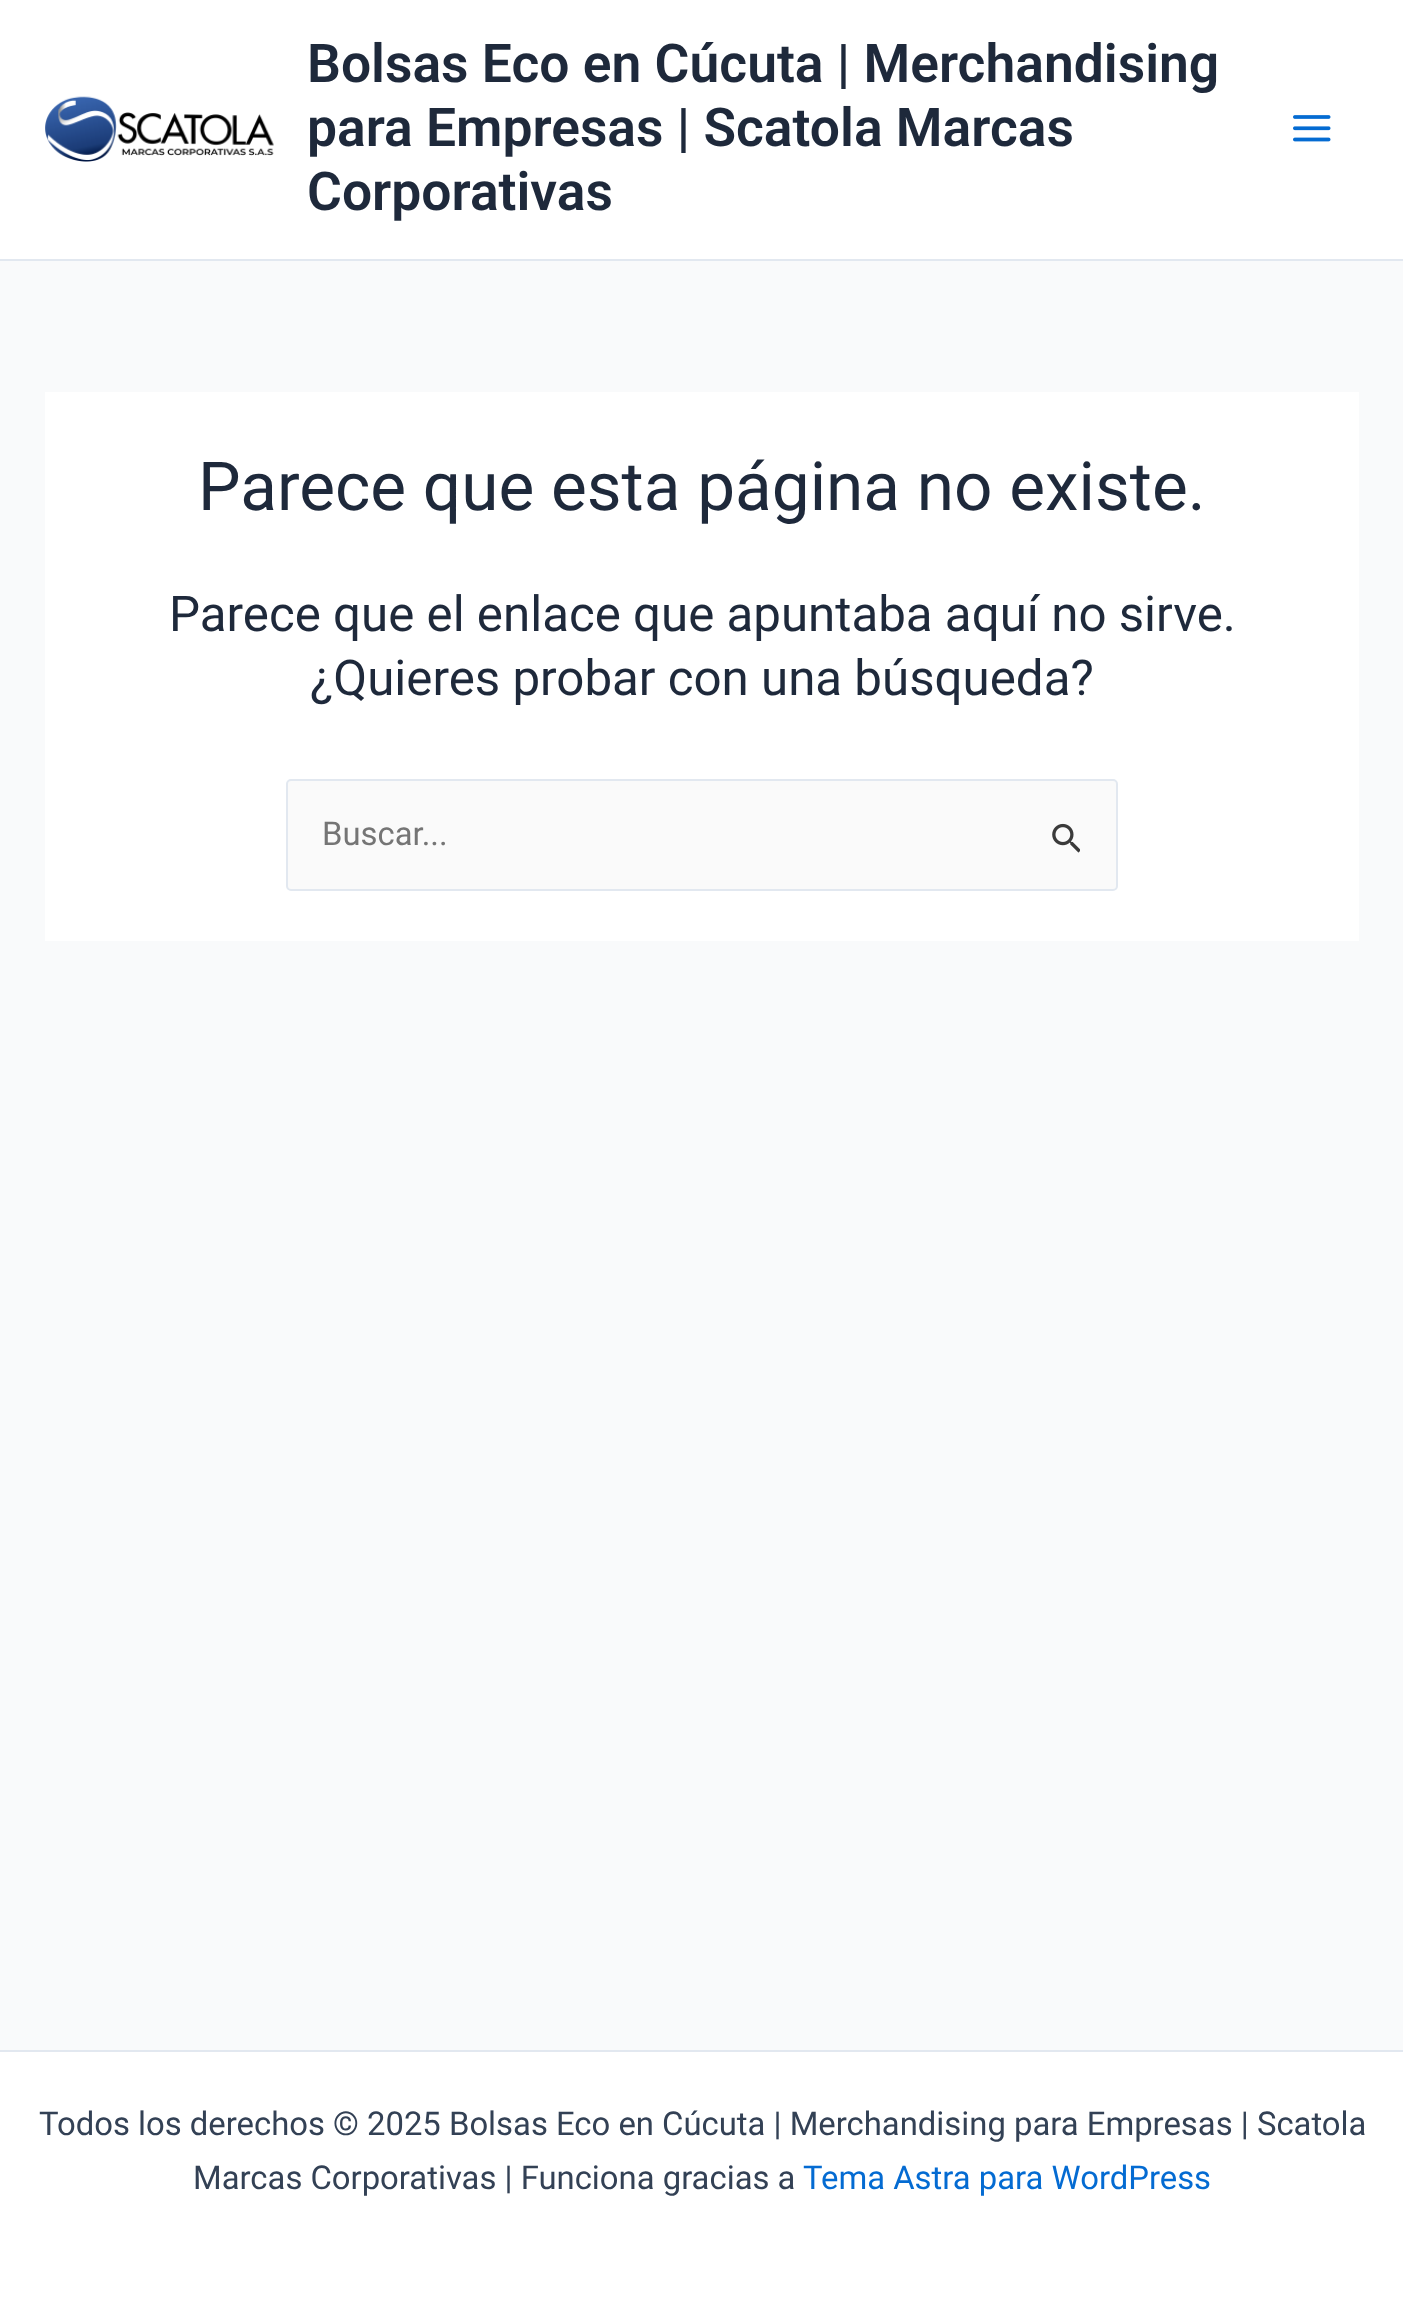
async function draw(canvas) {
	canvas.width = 1403;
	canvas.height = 2320;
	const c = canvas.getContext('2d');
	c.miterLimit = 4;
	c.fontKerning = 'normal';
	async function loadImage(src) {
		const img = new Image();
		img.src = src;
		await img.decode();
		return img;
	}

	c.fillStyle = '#f9fafb';
	c.fillRect(0, 0, 1403, 2320);
	c.fillStyle = '#fff';
	c.fillRect(0, 0, 1403, 259);
	c.fillStyle = '#e2e8f0';
	c.fillRect(0, 259, 1403, 2);
	c.drawImage(await loadImage('img1.png'), 45, 96, 229, 66);
	c.font = '600 53.4px Roboto';
	c.fillStyle = '#1e293b';
	for (const [text, x, y] of [
		['Bolsas Eco en Cúcuta | Merchandising', 307, 82],
		['para Empresas | Scatola Marcas', 307, 146],
		['Corporativas', 307, 210],
	]) {
		c.fillText(text, x, y);
	}
	c.drawImage(await loadImage('img2.png'), 1293, 115, 38, 27);
	c.fillStyle = '#fff';
	c.fillRect(45, 392, 1314, 549);
	c.font = '67.5px Roboto';
	c.fillStyle = '#1e293b';
	c.fillText('Parece que esta página no existe.', 198, 510);
	c.font = '49.25px Roboto';
	c.fillText('Parece que el enlace que apuntaba aquí no sirve.', 169, 631);
	c.fillText('¿Quieres probar con una búsqueda?', 310, 695);
	c.fillStyle = '#fafafa';
	c.beginPath();
	c.roundRect(287, 780, 830, 110, 4);
	c.fill();
	c.strokeStyle = '#e2e8f0';
	c.lineWidth = 2;
	c.stroke();
	c.font = '32.85px Roboto';
	c.fillStyle = '#757575';
	c.fillText('Buscar...', 322, 845);
	c.drawImage(await loadImage('img3.png'), 1052, 823, 28, 30);
	c.fillStyle = '#fff';
	c.fillRect(0, 2052, 1403, 268);
	c.fillStyle = '#e2e8f0';
	c.fillRect(0, 2050, 1403, 2);
	c.fillStyle = '#334155';
	c.fillText('Todos los derechos © 2025 Bolsas Eco en Cúcuta | Merchandising para Empresas | Scatola', 39, 2135);
	c.fillText('Marcas Corporativas | Funciona gracias a', 193, 2189);
	c.fillStyle = '#046bd2';
	c.fillText('Tema Astra para WordPress', 803, 2189);
}

draw(document.querySelector('canvas'));
